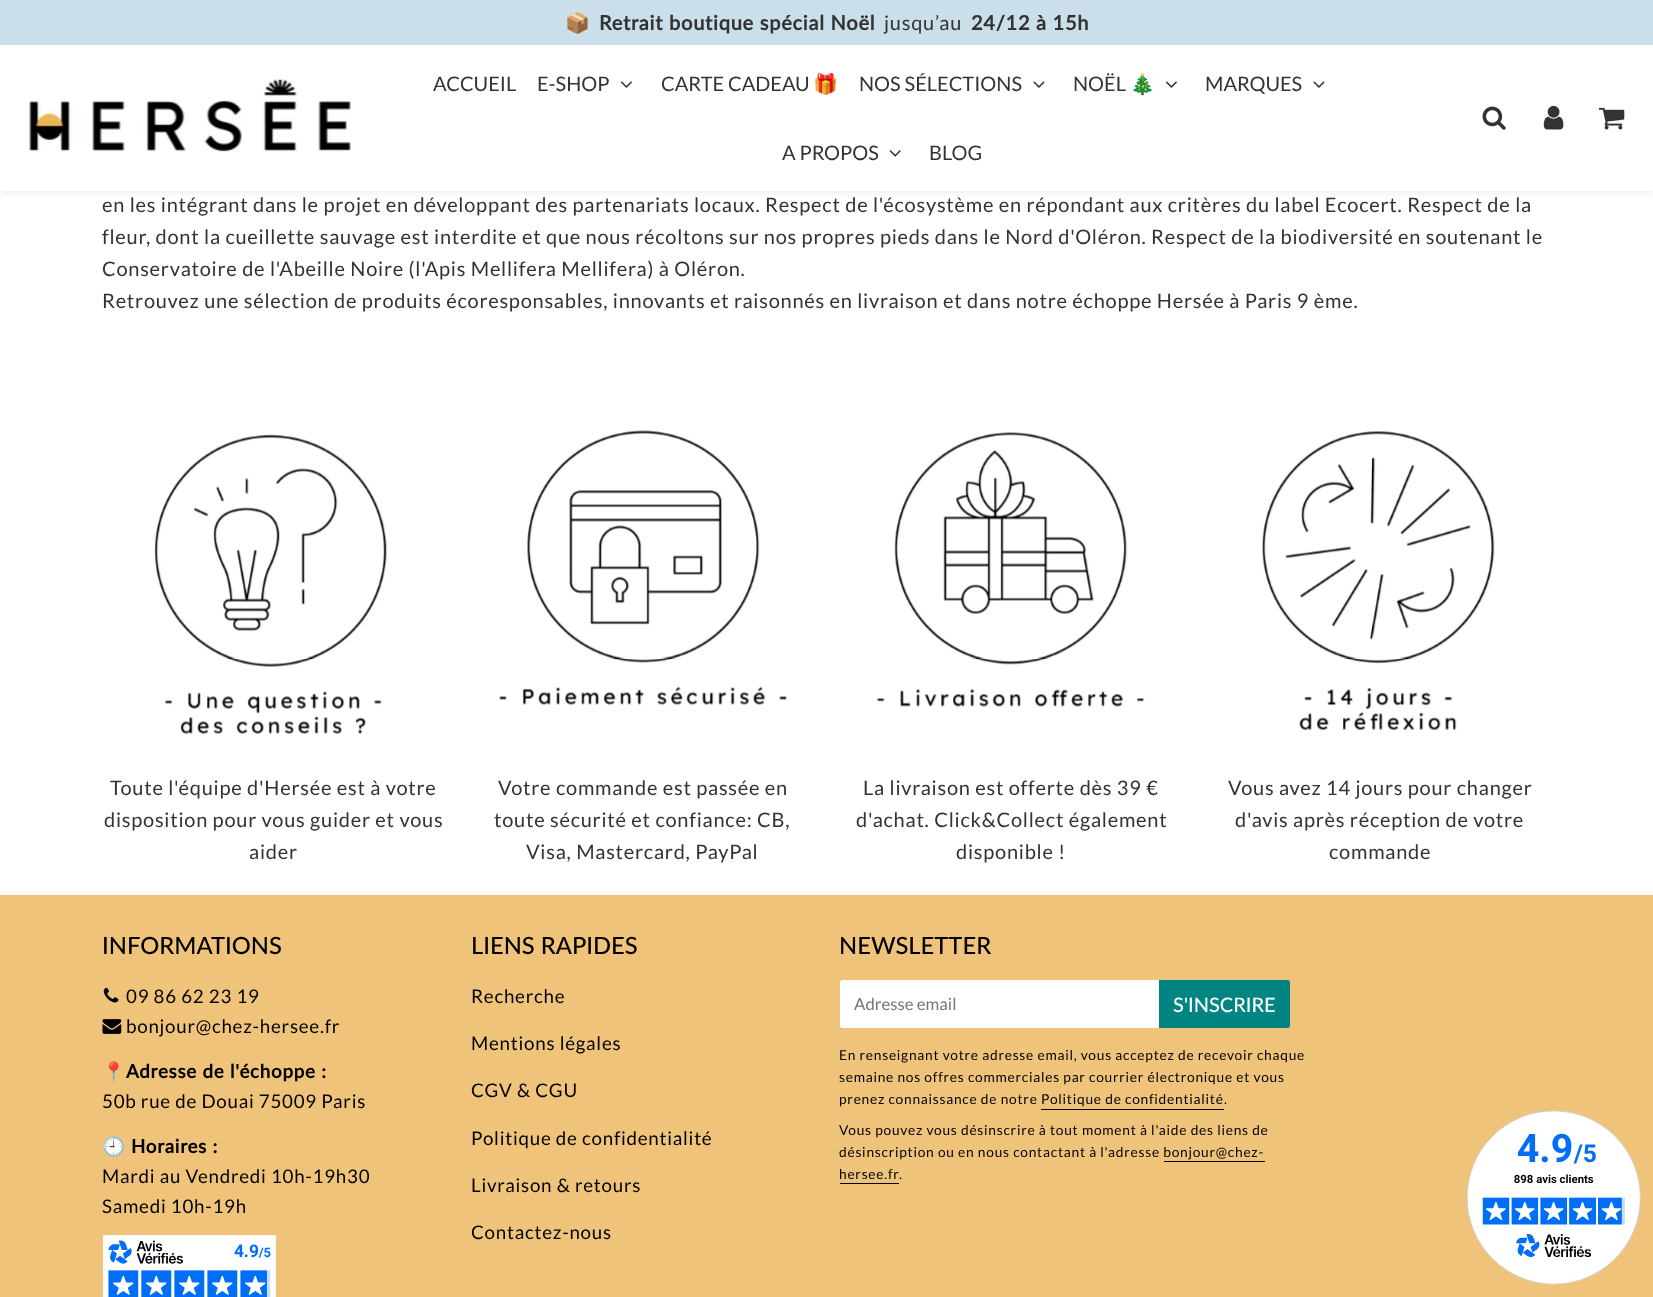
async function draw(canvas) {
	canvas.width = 1653;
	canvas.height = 1297;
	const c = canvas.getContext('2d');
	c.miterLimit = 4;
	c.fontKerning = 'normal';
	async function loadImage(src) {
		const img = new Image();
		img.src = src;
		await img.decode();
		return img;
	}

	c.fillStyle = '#fff';
	c.fillRect(0, 0, 1653, 1297);
	c.fillStyle = '#0000000d';
	c.filter = 'blur(2.5px)';
	c.beginPath();
	c.rect(0, 3, 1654, 191);
	c.fill();
	c.filter = 'none';
	c.fillStyle = '#fff';
	c.fillRect(0, 45, 1653, 146);
	c.fillStyle = '#cadfea';
	c.fillRect(0, 0, 1653, 45);
	c.letterSpacing = '0.75px';
	c.font = '20px Noto Color Emoji';
	c.fillStyle = '#333';
	c.fillText('📦', 565, 30);
	c.font = 'bold 20px Lato';
	c.fillText('Retrait boutique spécial Noël', 599, 30);
	c.font = '20px Lato';
	c.fillText('jusqu’au', 884, 30);
	c.font = 'bold 20px Lato';
	c.fillText('24/12 à 15h', 971, 30);
	c.drawImage(await loadImage('img1.png'), 28, 79, 323, 73);
	c.letterSpacing = '0px';
	c.font = '20px Lato';
	c.fillText('ACCUEIL', 433, 91);
	c.fillText('E-SHOP', 537, 91);
	c.drawImage(await loadImage('img2.png'), 620, 81, 12, 7);
	c.fillText('CARTE CADEAU', 661, 91);
	c.font = '20px Noto Color Emoji';
	c.fillText('🎁', 813, 91);
	c.font = '20px Lato';
	c.fillText('NOS SÉLECTIONS', 859, 91);
	c.drawImage(await loadImage('img3.png'), 1033, 81, 12, 7);
	c.fillText('NOËL', 1073, 91);
	c.font = '20px Noto Color Emoji';
	c.fillText('🎄', 1130, 91);
	c.drawImage(await loadImage('img2.png'), 1165, 81, 12, 7);
	c.font = '20px Lato';
	c.fillText('MARQUES', 1205, 91);
	c.drawImage(await loadImage('img3.png'), 1313, 81, 12, 7);
	c.fillText('A PROPOS', 782, 160);
	c.drawImage(await loadImage('img4.png'), 889, 150, 12, 7);
	c.fillText('BLOG', 929, 160);
	c.drawImage(await loadImage('img5.png'), 1482, 106, 24, 24);
	c.drawImage(await loadImage('img6.png'), 1543, 105, 21, 25);
	c.drawImage(await loadImage('img7.png'), 1598, 107, 27, 23);
	c.letterSpacing = '0.75px';
	for (const [text, x, y] of [
		['en les intégrant dans le projet en développant des partenariats locaux. Respect de l\'écosystème en répondant aux critères du label Ecocert. Respect de la', 102, 212],
		['fleur, dont la cueillette sauvage est interdite et que nous récoltons sur nos propres pieds dans le Nord d\'Oléron. Respect de la biodiversité en soutenant le', 102, 244],
		['Conservatoire de l\'Abeille Noire (l\'Apis Mellifera Mellifera) à Oléron.', 102, 276],
		['Retrouvez une sélection de produits écoresponsables, innovants et raisonnés en livraison et dans notre échoppe Hersée à Paris 9 ème.', 102, 308],
	]) {
		c.fillText(text, x, y);
	}
	c.drawImage(await loadImage('img8.png'), 154, 434, 233, 300);
	for (const [text, x, y] of [
		['Toute l\'équipe d\'Hersée est à votre', 110, 795],
		['disposition pour vous guider et vous', 104, 827],
		['aider', 249, 859],
	]) {
		c.fillText(text, x, y);
	}
	c.drawImage(await loadImage('img9.png'), 499, 430, 288, 275);
	for (const [text, x, y] of [
		['Votre commande est passée en', 498, 795],
		['toute sécurité et confiance: CB,', 494, 827],
		['Visa, Mastercard, PayPal', 526, 859],
	]) {
		c.fillText(text, x, y);
	}
	c.drawImage(await loadImage('img10.png'), 877, 432, 268, 275);
	for (const [text, x, y] of [
		['La livraison est offerte dès 39 €', 863, 795],
		['d\'achat. Click&Collect également', 856, 827],
		['disponible !', 956, 859],
	]) {
		c.fillText(text, x, y);
	}
	c.drawImage(await loadImage('img11.png'), 1262, 431, 233, 300);
	for (const [text, x, y] of [
		['Vous avez 14 jours pour changer', 1228, 795],
		['d\'avis après réception de votre', 1235, 827],
		['commande', 1329, 859],
	]) {
		c.fillText(text, x, y);
	}
	c.fillStyle = '#f0c37b';
	c.fillRect(0, 895, 1653, 402);
	c.letterSpacing = '0px';
	c.font = '500 23.75px Lato';
	c.fillStyle = '#000';
	c.fillText('INFORMATIONS', 102, 954);
	c.drawImage(await loadImage('img12.png'), 103, 987, 16, 16);
	c.letterSpacing = '0.75px';
	c.font = '18.75px Lato';
	c.fillText('09 86 62 23 19', 126, 1003);
	c.drawImage(await loadImage('img13.png'), 102, 1019, 20, 15);
	c.fillText('bonjour@chez-hersee.fr', 126, 1033);
	c.font = 'bold 18.75px Noto Color Emoji';
	c.fillText('📍', 102, 1078);
	c.font = 'bold 18.75px Lato';
	c.fillText('Adresse de l\'échoppe :', 126, 1078);
	c.font = '18.75px Lato';
	c.fillText('50b rue de Douai 75009 Paris', 102, 1108);
	c.font = 'bold 18.75px Noto Color Emoji';
	c.fillText('🕘', 102, 1153);
	c.font = 'bold 18.75px Lato';
	c.fillText('Horaires :', 131, 1153);
	c.font = '18.75px Lato';
	c.fillText('Mardi au Vendredi 10h-19h30', 102, 1183);
	c.fillText('Samedi 10h-19h', 102, 1213);
	c.drawImage(await loadImage('img14.png'), 103, 1235, 173, 62);
	c.letterSpacing = '0px';
	c.font = '500 23.75px Lato';
	c.fillText('LIENS RAPIDES', 471, 954);
	c.letterSpacing = '0.75px';
	c.font = '18.75px Lato';
	for (const [text, x, y] of [
		['Recherche', 471, 1003],
		['Mentions légales', 471, 1050],
		['CGV & CGU', 471, 1097],
		['Politique de confidentialité', 471, 1145],
		['Livraison & retours', 471, 1192],
		['Contactez-nous', 471, 1239],
	]) {
		c.fillText(text, x, y);
	}
	c.letterSpacing = '0px';
	c.font = '500 23.75px Lato';
	c.fillText('NEWSLETTER', 839, 954);
	c.fillStyle = '#fff';
	c.beginPath();
	c.roundRect(840, 980, 319, 48, [2.5, 0, 0, 2.5]);
	c.fill();
	c.font = '16.75px Lato';
	c.fillStyle = '#757575';
	c.fillText('Adresse email', 854, 1010);
	c.fillStyle = '#008583';
	c.beginPath();
	c.roundRect(1159, 980, 131, 48, [0, 2.5, 2.5, 0]);
	c.fill();
	c.font = '500 20px Lato';
	c.fillStyle = '#fff';
	c.fillText('S\'INSCRIRE', 1173, 1012);
	c.letterSpacing = '0.75px';
	c.font = '13.75px Lato';
	c.fillStyle = '#000';
	for (const [text, x, y] of [
		['En renseignant votre adresse email, vous acceptez de recevoir chaque', 839, 1060],
		['semaine nos offres commerciales par courrier électronique et vous', 839, 1082],
		['prenez connaissance de notre Politique de confidentialité', 839, 1104],
		['.', 1224, 1104],
	]) {
		c.fillText(text, x, y);
	}
	c.fillRect(1041, 1109, 183, 1);
	for (const [text, x, y] of [
		['Vous pouvez vous désinscrire à tout moment à l\'aide des liens de', 839, 1135],
		['désinscription ou en nous contactant à l\'adresse bonjour@chez-', 839, 1157],
		['hersee.fr', 839, 1179],
	]) {
		c.fillText(text, x, y);
	}
	c.fillRect(1164, 1161, 101, 1);
	c.fillRect(840, 1183, 59, 1);
	c.fillText('.', 899, 1179);
	c.drawImage(await loadImage('img15.png'), 1466, 1110, 175, 175);
}

draw(document.querySelector('canvas'));
